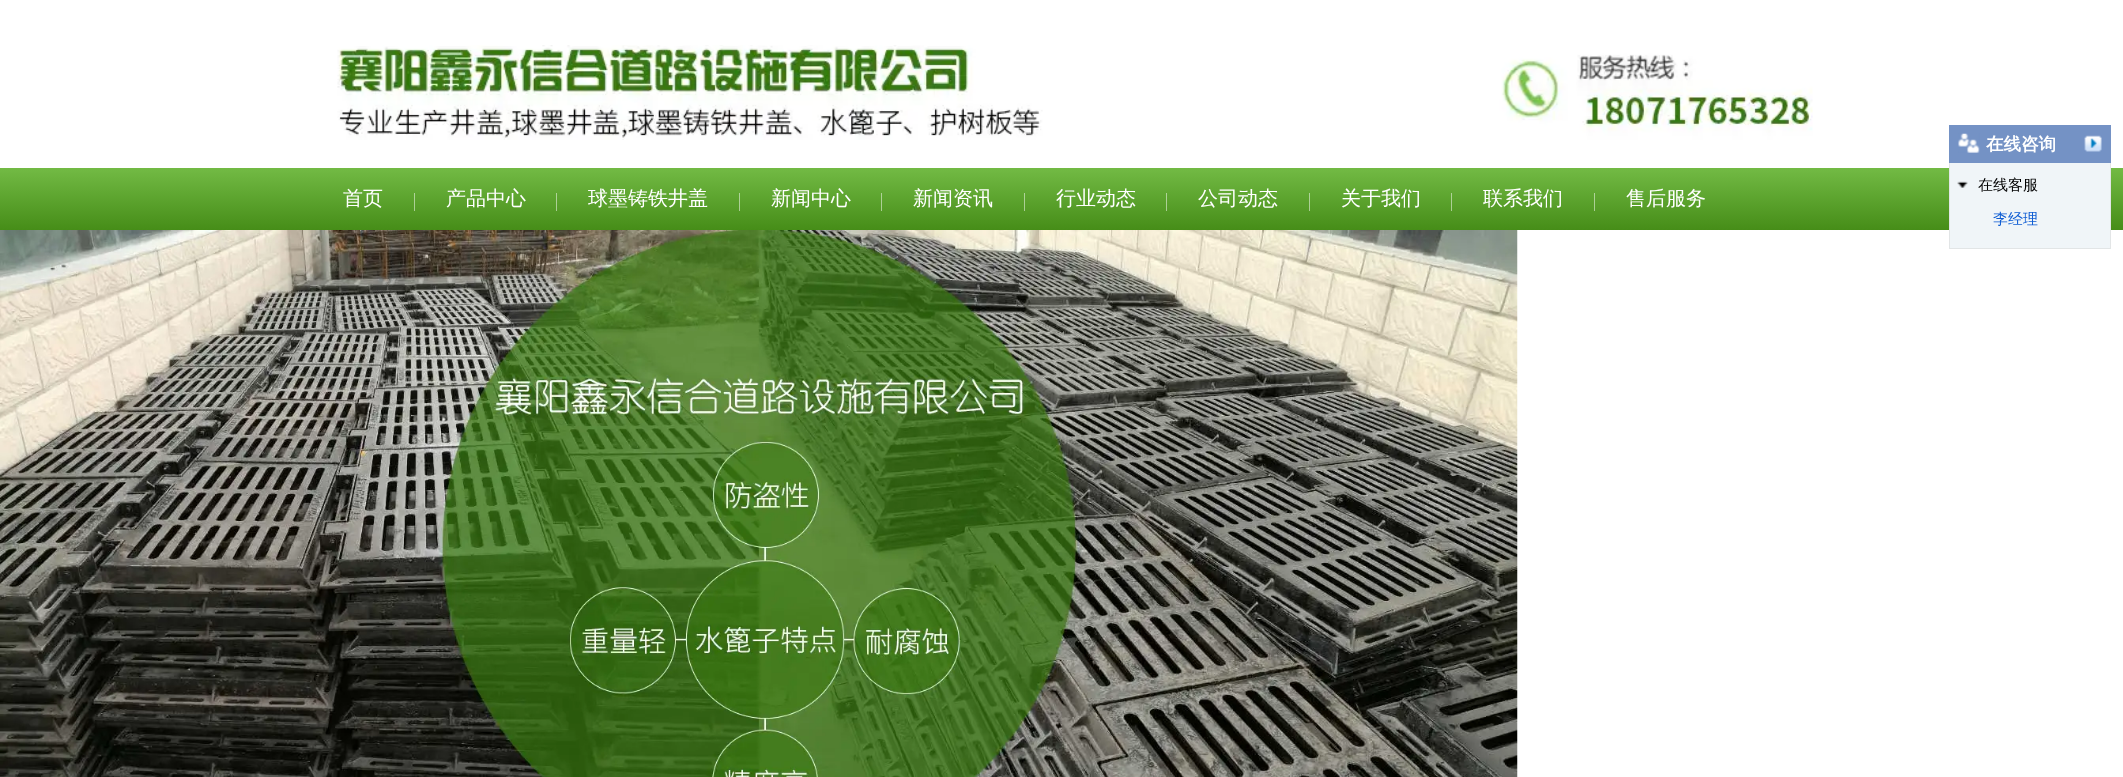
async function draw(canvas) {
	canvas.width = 2123;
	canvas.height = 777;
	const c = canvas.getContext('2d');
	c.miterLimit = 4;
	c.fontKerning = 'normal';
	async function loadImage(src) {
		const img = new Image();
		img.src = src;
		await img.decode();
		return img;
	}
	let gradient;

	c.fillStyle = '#fff';
	c.fillRect(0, 0, 2123, 777);
	c.drawImage(await loadImage('img1.png'), 337, 45, 1476, 95);
	gradient = c.createLinearGradient(1062, 167, 1062, 230);
	gradient.addColorStop(0, '#73bb45');
	gradient.addColorStop(1, '#468d18');
	c.fillStyle = gradient;
	c.fillRect(0, 168, 2123, 62);
	gradient = c.createLinearGradient(1062, 167, 1062, 230);
	gradient.addColorStop(0, '#b9dda2');
	gradient.addColorStop(1, '#a3c68c');
	c.fillStyle = gradient;
	c.fillRect(1594, 193, 1, 18);
	c.fillRect(1451, 193, 1, 18);
	c.fillRect(1309, 193, 1, 18);
	c.fillRect(1166, 193, 1, 18);
	c.fillRect(1024, 193, 1, 18);
	c.fillRect(881, 193, 1, 18);
	c.fillRect(739, 193, 1, 18);
	c.fillRect(556, 193, 1, 18);
	c.fillRect(414, 193, 1, 18);
	c.font = '500 20px WenQuanYi Zen Hei';
	c.fillStyle = '#fff';
	for (const [text, x, y] of [
		['首页', 343, 205],
		['产品中心', 446, 205],
		['球墨铸铁井盖', 588, 205],
		['新闻中心', 771, 205],
		['新闻资讯', 913, 205],
		['行业动态', 1056, 205],
		['公司动态', 1198, 205],
		['关于我们', 1341, 205],
		['联系我们', 1483, 205],
		['售后服务', 1626, 205],
	]) {
		c.fillText(text, x, y);
	}
	c.drawImage(await loadImage('img2.png'), 0, 230, 1518, 547);
	c.fillStyle = '#7492c5';
	c.fillRect(1949, 125, 162, 38);
	c.drawImage(await loadImage('img3.png'), 1958, 133, 22, 20);
	c.font = 'bold 17.5px WenQuanYi Zen Hei';
	c.fillStyle = '#fff';
	c.fillText('在线咨询', 1986, 150);
	c.drawImage(await loadImage('img4.png'), 2084, 135, 18, 17);
	for (const [x, y, w, h, color] of [
		[1950, 163, 160, 85, '#f0f5f8'],
		[2110, 163, 1, 86, '#e2e5e6'],
		[1949, 248, 162, 1, '#e2e5e6'],
		[1949, 163, 1, 86, '#e2e5e6'],
	]) {
		c.fillStyle = color;
		c.fillRect(x, y, w, h);
	}
	c.drawImage(await loadImage('img5.png'), 1957, 181, 11, 7);
	c.font = '500 15px WenQuanYi Zen Hei';
	c.fillStyle = '#000';
	c.fillText('在线客服', 1978, 190);
	c.fillStyle = '#0f5dd3';
	c.fillText('李经理', 1993, 224);
}

draw(document.querySelector('canvas'));
